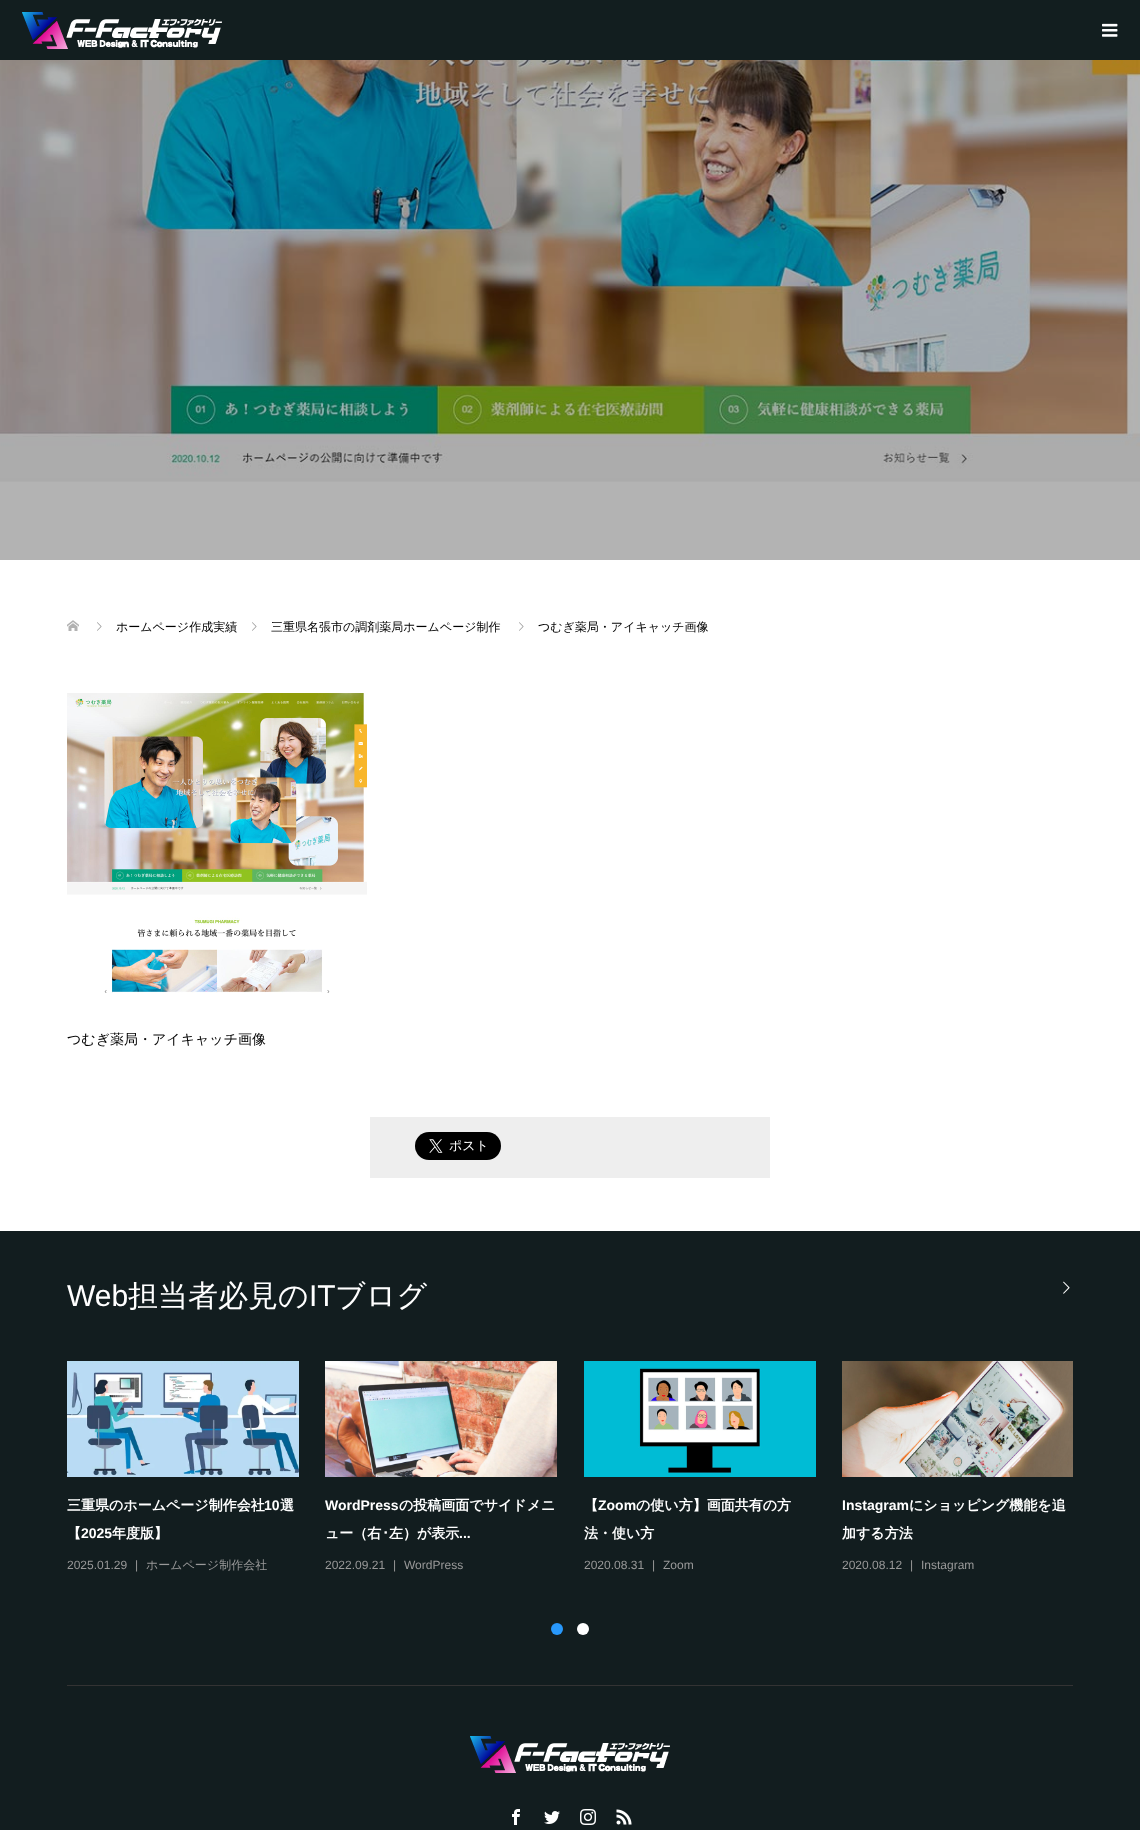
async function draw(canvas) {
	canvas.width = 1140;
	canvas.height = 1830;
	const c = canvas.getContext('2d');
	c.miterLimit = 4;
	c.fontKerning = 'normal';
	async function loadImage(src) {
		const img = new Image();
		img.src = src;
		await img.decode();
		return img;
	}

	c.fillStyle = '#fff';
	c.fillRect(0, 0, 1140, 1830);
	c.fillStyle = '#b3b3b3';
	c.fillRect(0, 482, 1140, 78);
	c.fillStyle = '#121e1f';
	c.fillRect(0, 0, 1140, 60);
	c.drawImage(await loadImage('img1.png'), 22, 12, 200, 37);
	c.drawImage(await loadImage('img2.png'), 1102, 23, 16, 14);
	c.drawImage(await loadImage('img3.png'), 0, 60, 1140, 422);
	c.drawImage(await loadImage('img4.png'), 67, 620, 12, 11);
	c.drawImage(await loadImage('img5.png'), 97, 622, 5, 9);
	c.font = '500 12px WenQuanYi Zen Hei';
	c.fillStyle = '#000';
	c.fillText('ホームページ作成実績', 116, 631);
	c.drawImage(await loadImage('img5.png'), 252, 622, 5, 9);
	c.fillText('三重県名張市の調剤薬局ホームページ制作', 271, 631);
	c.drawImage(await loadImage('img5.png'), 519, 622, 5, 9);
	c.fillText('つむぎ薬局・アイキャッチ画像', 538, 631);
	c.drawImage(await loadImage('img6.png'), 67, 693, 300, 300);
	c.font = '500 14px WenQuanYi Zen Hei';
	c.fillText('つむぎ薬局・アイキャッチ画像', 67, 1044);
	c.fillStyle = '#eee';
	c.fillRect(370, 1117, 400, 61);
	c.drawImage(await loadImage('img7.png'), 415, 1132, 86, 28);
	c.fillStyle = '#121d1f';
	c.fillRect(0, 1231, 1140, 599);
	c.fillStyle = '#333';
	c.fillRect(67, 1685, 1006, 1);
	c.font = '30px Liberation Sans';
	c.fillStyle = '#fff';
	c.fillText('Web', 67, 1306);
	c.font = '500 30px WenQuanYi Zen Hei';
	c.fillText('担当者必見の', 128, 1306);
	c.font = '30px Liberation Sans';
	c.fillText('IT', 309, 1306);
	c.font = '500 30px WenQuanYi Zen Hei';
	c.fillText('ブログ', 335, 1306);
	c.drawImage(await loadImage('img8.png'), 1063, 1281, 7, 13);
	c.drawImage(await loadImage('img9.png'), 67, 1361, 232, 116);
	c.font = 'bold 14px WenQuanYi Zen Hei';
	c.fillText('三重県のホームページ制作会社', 67, 1510);
	c.font = 'bold 14px Liberation Sans';
	c.fillText('10', 264, 1510);
	c.font = 'bold 14px WenQuanYi Zen Hei';
	c.fillText('選', 280, 1510);
	c.fillText('【', 67, 1538);
	c.font = 'bold 14px Liberation Sans';
	c.fillText('2025', 81, 1538);
	c.font = 'bold 14px WenQuanYi Zen Hei';
	c.fillText('年度版】', 112, 1538);
	c.font = '12px Liberation Sans';
	c.fillStyle = '#999';
	c.fillText('2025.01.29', 67, 1569);
	c.fillText('|', 135, 1569);
	c.font = '500 12px WenQuanYi Zen Hei';
	c.fillText('ホームページ制作会社', 146, 1569);
	c.drawImage(await loadImage('img10.png'), 325, 1361, 232, 116);
	c.font = 'bold 14px Liberation Sans';
	c.fillStyle = '#fff';
	c.fillText('WordPress', 325, 1510);
	c.font = 'bold 14px WenQuanYi Zen Hei';
	c.fillText('の投稿画面でサイドメニ', 399, 1510);
	c.fillText('ュー（右', 325, 1538);
	c.font = 'bold 14px IPAPGothic';
	c.fillText('･', 382, 1538);
	c.font = 'bold 14px WenQuanYi Zen Hei';
	c.fillText('左）が表示', 389, 1538);
	c.font = 'bold 14px Liberation Sans';
	c.fillText('...', 459, 1538);
	c.font = '12px Liberation Sans';
	c.fillStyle = '#999';
	for (const [text, x, y] of [
		['2022.09.21', 325, 1569],
		['|', 393, 1569],
		['WordPress', 404, 1569],
	]) {
		c.fillText(text, x, y);
	}
	c.drawImage(await loadImage('img11.png'), 584, 1361, 232, 116);
	c.font = 'bold 14px WenQuanYi Zen Hei';
	c.fillStyle = '#fff';
	c.fillText('【', 584, 1510);
	c.font = 'bold 14px Liberation Sans';
	c.fillText('Zoom', 598, 1510);
	c.font = 'bold 14px WenQuanYi Zen Hei';
	c.fillText('の使い方】画面共有の方', 636, 1510);
	c.fillText('法・使い方', 584, 1538);
	c.font = '12px Liberation Sans';
	c.fillStyle = '#999';
	for (const [text, x, y] of [
		['2020.08.31', 584, 1569],
		['|', 652, 1569],
		['Zoom', 663, 1569],
	]) {
		c.fillText(text, x, y);
	}
	c.drawImage(await loadImage('img12.png'), 842, 1361, 231, 116);
	c.font = 'bold 14px Liberation Sans';
	c.fillStyle = '#fff';
	c.fillText('Instagram', 842, 1510);
	c.font = 'bold 14px WenQuanYi Zen Hei';
	c.fillText('にショッピング機能を追', 909, 1510);
	c.fillText('加する方法', 842, 1538);
	c.font = '12px Liberation Sans';
	c.fillStyle = '#999';
	for (const [text, x, y] of [
		['2020.08.12', 842, 1569],
		['|', 910, 1569],
		['Instagram', 921, 1569],
	]) {
		c.fillText(text, x, y);
	}
	c.fillStyle = '#2898fb';
	c.beginPath();
	c.arc(557, 1629, 6, 0, 2 * Math.PI);
	c.fill();
	c.fillStyle = '#fff';
	c.beginPath();
	c.arc(583, 1629, 6, 0, 2 * Math.PI);
	c.fill();
	c.drawImage(await loadImage('img13.png'), 470, 1736, 200, 37);
	c.drawImage(await loadImage('img14.png'), 512, 1809, 8, 16);
	c.drawImage(await loadImage('img15.png'), 544, 1811, 16, 13);
	c.drawImage(await loadImage('img16.png'), 580, 1809, 16, 16);
	c.drawImage(await loadImage('img17.png'), 616, 1809, 16, 16);
}

draw(document.querySelector('canvas'));
